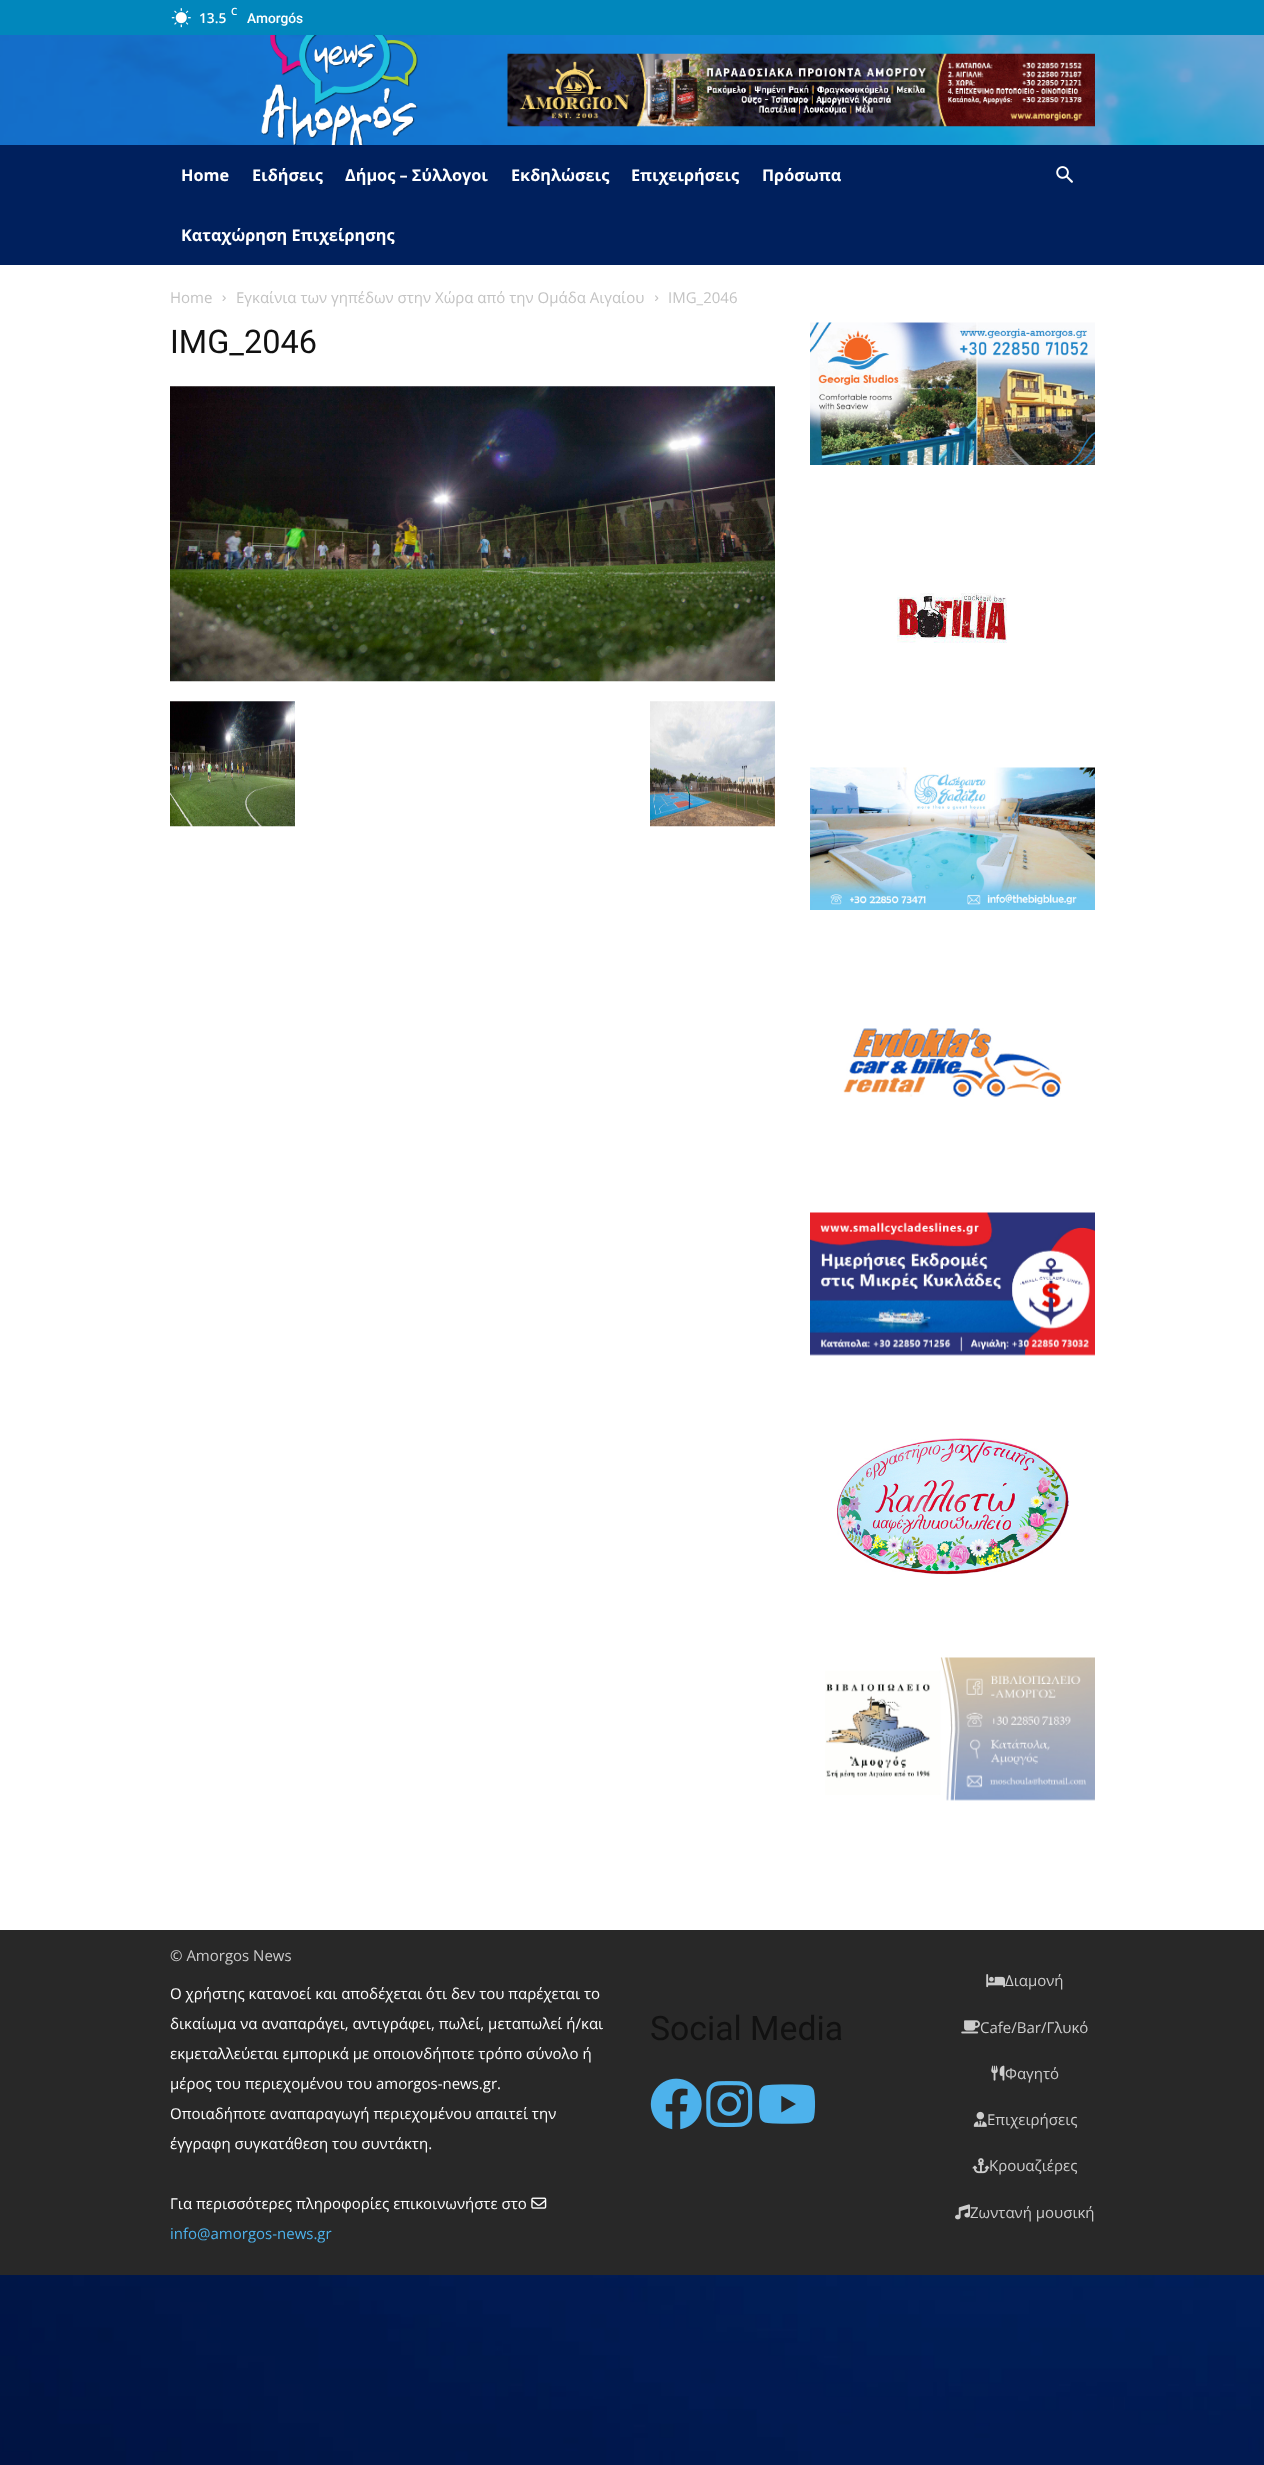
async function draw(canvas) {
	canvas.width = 1264;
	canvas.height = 2465;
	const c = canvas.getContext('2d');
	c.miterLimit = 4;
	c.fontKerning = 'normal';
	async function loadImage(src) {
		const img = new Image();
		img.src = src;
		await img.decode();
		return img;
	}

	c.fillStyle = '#fff';
	c.fillRect(0, 0, 1264, 2465);
	c.fillStyle = '#0187bc';
	c.fillRect(0, 0, 1264, 35);
	c.drawImage(await loadImage('img1.png'), 171, 8, 20, 20);
	c.font = '600 10px Open Sans';
	c.fillStyle = '#fff';
	c.fillText('C', 231, 15);
	c.font = '600 13.75px Open Sans';
	c.fillText('13.5', 199, 23);
	c.font = '500 13.75px Roboto';
	c.fillText('Amorgós', 247, 23);
	c.drawImage(await loadImage('img27.png'), 0, 35, 1264, 2430);
	c.fillStyle = '#1e73bea6';
	c.fillRect(0, 35, 1264, 110);
	c.drawImage(await loadImage('img2.png'), 261, 35, 157, 110);
	c.drawImage(await loadImage('img3.png'), 507, 53, 588, 74);
	c.fillStyle = '#00205d';
	c.fillRect(0, 145, 1264, 120);
	c.font = 'bold 16.25px Open Sans';
	c.fillStyle = '#fff';
	for (const [text, x, y] of [
		['Home', 181, 181],
		['Ειδήσεις', 252, 181],
		['Δήμος – Σύλλογοι', 345, 181],
		['Εκδηλώσεις', 511, 181],
		['Επιχειρήσεις', 631, 181],
		['Πρόσωπα', 762, 181],
		['Καταχώρηση Επιχείρησης', 181, 241],
	]) {
		c.fillText(text, x, y);
	}
	c.drawImage(await loadImage('img4.png'), 1056, 166, 17, 17);
	c.fillRect(0, 265, 1264, 1665);
	c.font = '15px Open Sans';
	c.fillStyle = '#c3c3c3';
	c.fillText('Home', 170, 303);
	c.drawImage(await loadImage('img5.png'), 222, 295, 4, 6);
	c.fillText('Εγκαίνια των γηπέδων στην Χώρα από την Ομάδα Αιγαίου', 236, 303);
	c.drawImage(await loadImage('img6.png'), 655, 295, 4, 6);
	c.fillText('IMG_2046', 668, 303);
	c.font = '32.5px Roboto';
	c.fillStyle = '#111';
	c.fillText('IMG_2046', 170, 353);
	c.drawImage(await loadImage('img7.png'), 170, 386, 605, 296);
	c.drawImage(await loadImage('img8.png'), 170, 701, 125, 126);
	c.drawImage(await loadImage('img9.png'), 650, 701, 125, 126);
	c.drawImage(await loadImage('img10.png'), 810, 322, 285, 143);
	c.drawImage(await loadImage('img11.png'), 897, 593, 110, 50);
	c.drawImage(await loadImage('img12.png'), 810, 767, 285, 143);
	c.drawImage(await loadImage('img13.png'), 843, 1028, 219, 69);
	c.drawImage(await loadImage('img14.png'), 810, 1212, 285, 144);
	c.drawImage(await loadImage('img15.png'), 837, 1438, 232, 137);
	c.drawImage(await loadImage('img16.png'), 825, 1657, 270, 144);
	c.fillStyle = '#282828';
	c.fillRect(0, 1930, 1264, 345);
	c.font = '15px Open Sans';
	c.fillStyle = '#ccc';
	c.fillText('© Amorgos News', 170, 1961);
	c.fillStyle = '#fff';
	for (const [text, x, y] of [
		['Ο χρήστης κατανοεί και αποδέχεται ότι δεν του παρέχεται το', 170, 1999],
		['δικαίωμα να αναπαράγει, αντιγράφει, πωλεί, μεταπωλεί ή/και', 170, 2029],
		['εκμεταλλεύεται εμπορικά με οποιονδήποτε τρόπο σύνολο ή', 170, 2059],
		['μέρος του περιεχομένου του amorgos-news.gr.', 170, 2089],
		['Οποιαδήποτε αναπαραγωγή περιεχομένου απαιτεί την', 170, 2119],
		['έγγραφη συγκατάθεση του συντάκτη.', 170, 2149],
		['Για περισσότερες πληροφορίες επικοινωνήστε στο', 170, 2209],
	]) {
		c.fillText(text, x, y);
	}
	c.drawImage(await loadImage('img17.png'), 531, 2197, 16, 12);
	c.fillStyle = '#4db2ec';
	c.fillText('info@amorgos-news.gr', 170, 2239);
	c.font = '33.75px Roboto';
	c.fillStyle = '#111';
	c.fillText('Social Media', 650, 2040);
	c.drawImage(await loadImage('img18.png'), 650, 2078, 52, 52);
	c.drawImage(await loadImage('img19.png'), 706, 2081, 47, 46);
	c.drawImage(await loadImage('img20.png'), 759, 2084, 57, 40);
	c.drawImage(await loadImage('img21.png'), 986, 1974, 19, 14);
	c.font = '15px Open Sans';
	c.fillStyle = '#ccc';
	c.fillText('Διαμονή', 1005, 1986);
	c.drawImage(await loadImage('img22.png'), 961, 2020, 19, 14);
	c.fillText('Cafe/Bar/Γλυκό', 980, 2033);
	c.drawImage(await loadImage('img23.png'), 991, 2065, 14, 16);
	c.fillText('Φαγητό', 1005, 2079);
	c.drawImage(await loadImage('img24.png'), 973, 2111, 14, 16);
	c.fillText('Επιχειρήσεις', 987, 2125);
	c.drawImage(await loadImage('img25.png'), 972, 2158, 18, 16);
	c.fillText('Κρουαζιέρες', 989, 2171);
	c.drawImage(await loadImage('img26.png'), 955, 2204, 15, 16);
	c.fillText('Ζωντανή μουσική', 970, 2218);
}

draw(document.querySelector('canvas'));
